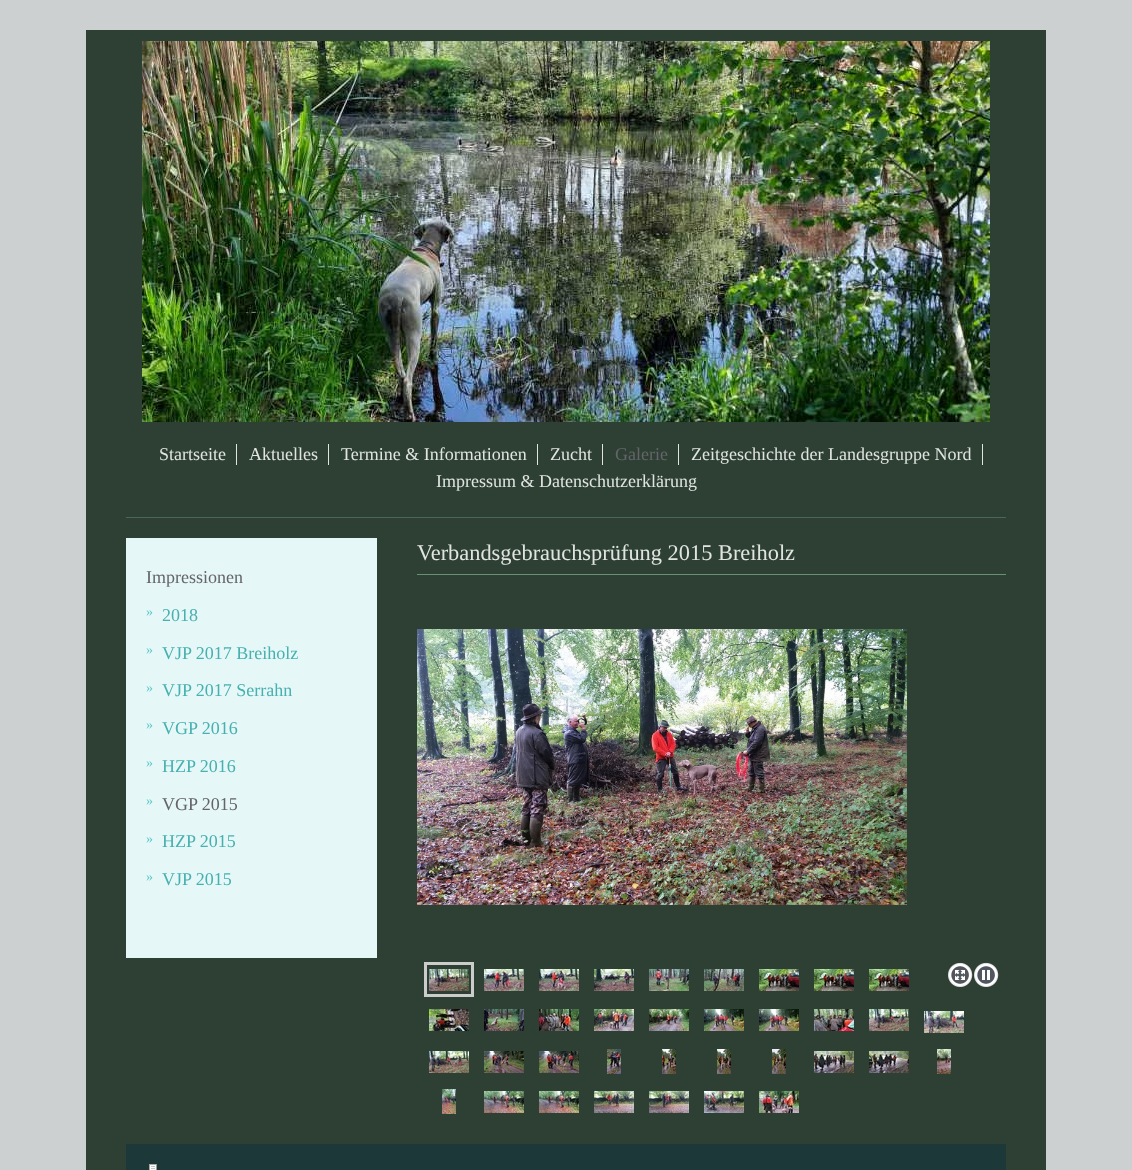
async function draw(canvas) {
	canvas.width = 1132;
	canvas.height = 1170;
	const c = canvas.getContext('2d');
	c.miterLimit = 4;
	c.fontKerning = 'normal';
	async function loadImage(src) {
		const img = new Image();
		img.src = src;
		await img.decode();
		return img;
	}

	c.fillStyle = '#cdd0d0';
	c.fillRect(0, 0, 1132, 1170);
	c.fillStyle = '#2e4034';
	c.fillRect(86, 30, 960, 1140);
	c.drawImage(await loadImage('img1.png'), 142, 41, 848, 381);
	c.fillStyle = '#4b6855';
	c.fillRect(126, 517, 880, 1);
	c.fillStyle = '#e1e5e2';
	c.fillRect(236, 444, 1, 21);
	c.font = '18px Liberation Serif';
	c.fillText('Startseite', 159, 460);
	c.fillRect(328, 444, 1, 21);
	c.fillText('Aktuelles', 249, 460);
	c.fillRect(537, 444, 1, 21);
	c.fillText('Termine & Informationen', 341, 460);
	c.fillRect(602, 444, 1, 21);
	c.fillText('Zucht', 550, 460);
	c.fillRect(678, 444, 1, 21);
	c.fillStyle = '#64646b';
	c.fillText('Galerie', 615, 460);
	c.fillStyle = '#e1e5e2';
	c.fillRect(982, 444, 1, 21);
	c.fillText('Zeitgeschichte der Landesgruppe Nord', 691, 460);
	c.fillText('Impressum & Datenschutzerklärung', 436, 487);
	c.font = '22.4px Liberation Serif';
	c.fillText('Verbandsgebrauchsprüfung 2015 Breiholz', 417, 560);
	c.fillStyle = '#698f75';
	c.fillRect(417, 574, 589, 1);
	c.drawImage(await loadImage('img2.png'), 417, 629, 490, 276);
	c.strokeStyle = '#ccc';
	c.lineWidth = 3;
	c.strokeRect(425.5, 963.5, 47, 32);
	c.drawImage(await loadImage('img3.png'), 429, 969, 40, 22);
	c.drawImage(await loadImage('img4.png'), 484, 969, 40, 22);
	c.drawImage(await loadImage('img5.png'), 539, 969, 40, 22);
	c.drawImage(await loadImage('img6.png'), 594, 969, 40, 22);
	c.drawImage(await loadImage('img7.png'), 649, 969, 40, 22);
	c.drawImage(await loadImage('img8.png'), 704, 969, 40, 22);
	c.drawImage(await loadImage('img9.png'), 759, 969, 40, 22);
	c.drawImage(await loadImage('img10.png'), 814, 969, 40, 22);
	c.drawImage(await loadImage('img11.png'), 869, 969, 40, 22);
	c.drawImage(await loadImage('img12.png'), 948, 962, 25, 25);
	c.drawImage(await loadImage('img13.png'), 974, 962, 25, 25);
	c.drawImage(await loadImage('img14.png'), 429, 1009, 40, 22);
	c.drawImage(await loadImage('img15.png'), 484, 1009, 40, 22);
	c.drawImage(await loadImage('img16.png'), 539, 1009, 40, 22);
	c.drawImage(await loadImage('img17.png'), 594, 1009, 40, 22);
	c.drawImage(await loadImage('img18.png'), 649, 1009, 40, 22);
	c.drawImage(await loadImage('img19.png'), 704, 1009, 40, 22);
	c.drawImage(await loadImage('img20.png'), 759, 1009, 40, 22);
	c.drawImage(await loadImage('img21.png'), 814, 1009, 40, 22);
	c.drawImage(await loadImage('img22.png'), 869, 1009, 40, 22);
	c.drawImage(await loadImage('img23.png'), 924, 1011, 40, 22);
	c.drawImage(await loadImage('img24.png'), 429, 1051, 40, 22);
	c.drawImage(await loadImage('img25.png'), 484, 1051, 40, 22);
	c.drawImage(await loadImage('img26.png'), 539, 1051, 40, 22);
	c.drawImage(await loadImage('img27.png'), 607, 1049, 14, 25);
	c.drawImage(await loadImage('img28.png'), 662, 1049, 14, 25);
	c.drawImage(await loadImage('img29.png'), 717, 1049, 14, 25);
	c.drawImage(await loadImage('img30.png'), 772, 1049, 14, 25);
	c.drawImage(await loadImage('img31.png'), 814, 1051, 40, 22);
	c.drawImage(await loadImage('img32.png'), 869, 1051, 40, 22);
	c.drawImage(await loadImage('img33.png'), 937, 1049, 14, 25);
	c.drawImage(await loadImage('img34.png'), 442, 1089, 14, 25);
	c.drawImage(await loadImage('img35.png'), 484, 1091, 40, 22);
	c.drawImage(await loadImage('img36.png'), 539, 1091, 40, 22);
	c.drawImage(await loadImage('img37.png'), 594, 1091, 40, 22);
	c.drawImage(await loadImage('img38.png'), 649, 1091, 40, 22);
	c.drawImage(await loadImage('img39.png'), 704, 1091, 40, 22);
	c.drawImage(await loadImage('img40.png'), 759, 1091, 40, 22);
	c.fillStyle = '#e6f7f7';
	c.fillRect(126, 538, 251, 420);
	c.font = '18px Liberation Serif';
	c.fillStyle = '#64646b';
	c.fillText('Impressionen', 146, 583);
	c.font = '14px Liberation Serif';
	c.fillStyle = '#5bcaca';
	c.fillText('»', 146, 616);
	c.font = '18px Liberation Serif';
	c.fillStyle = '#47b0b0';
	c.fillText('2018', 162, 621);
	c.font = '14px Liberation Serif';
	c.fillStyle = '#5bcaca';
	c.fillText('»', 146, 654);
	c.font = '18px Liberation Serif';
	c.fillStyle = '#47b0b0';
	c.fillText('VJP 2017 Breiholz', 162, 659);
	c.font = '14px Liberation Serif';
	c.fillStyle = '#5bcaca';
	c.fillText('»', 146, 692);
	c.font = '18px Liberation Serif';
	c.fillStyle = '#47b0b0';
	c.fillText('VJP 2017 Serrahn', 162, 696);
	c.font = '14px Liberation Serif';
	c.fillStyle = '#5bcaca';
	c.fillText('»', 146, 729);
	c.font = '18px Liberation Serif';
	c.fillStyle = '#47b0b0';
	c.fillText('VGP 2016', 162, 734);
	c.font = '14px Liberation Serif';
	c.fillStyle = '#5bcaca';
	c.fillText('»', 146, 767);
	c.font = '18px Liberation Serif';
	c.fillStyle = '#47b0b0';
	c.fillText('HZP 2016', 162, 772);
	c.font = '14px Liberation Serif';
	c.fillStyle = '#5bcaca';
	c.fillText('»', 146, 805);
	c.font = '18px Liberation Serif';
	c.fillStyle = '#64646b';
	c.fillText('VGP 2015', 162, 810);
	c.font = '14px Liberation Serif';
	c.fillStyle = '#5bcaca';
	c.fillText('»', 146, 843);
	c.font = '18px Liberation Serif';
	c.fillStyle = '#47b0b0';
	c.fillText('HZP 2015', 162, 847);
	c.font = '14px Liberation Serif';
	c.fillStyle = '#5bcaca';
	c.fillText('»', 146, 881);
	c.font = '18px Liberation Serif';
	c.fillStyle = '#47b0b0';
	c.fillText('VJP 2015', 162, 885);
	c.fillStyle = '#1c3838';
	c.fillRect(126, 1144, 880, 26);
	c.drawImage(await loadImage('img41.png'), 149, 1164, 8, 6);
}

draw(document.querySelector('canvas'));
